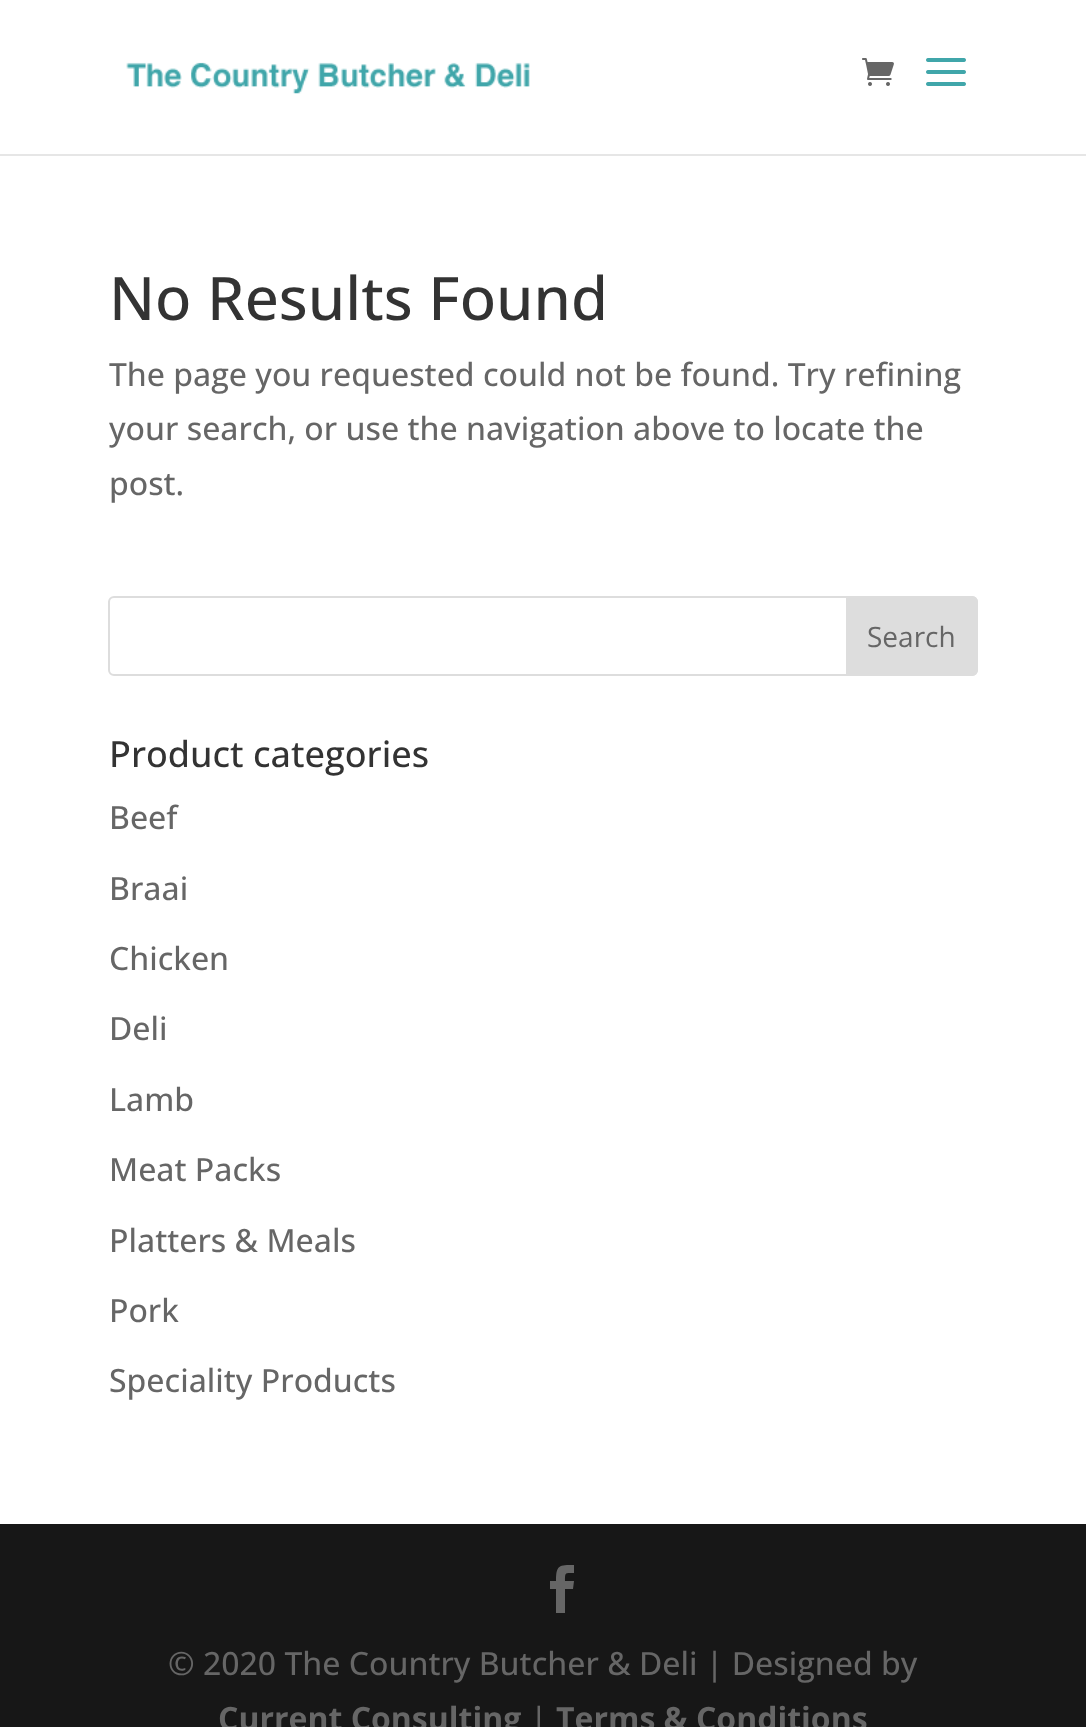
async function draw(canvas) {
	canvas.width = 1086;
	canvas.height = 1727;
	const c = canvas.getContext('2d');
	c.miterLimit = 4;
	c.fontKerning = 'normal';
	async function loadImage(src) {
		const img = new Image();
		img.src = src;
		await img.decode();
		return img;
	}

	c.fillStyle = '#fff';
	c.fillRect(0, 0, 1086, 1727);
	c.fillStyle = '#e6e6e6';
	c.fillRect(0, 154, 1086, 2);
	c.drawImage(await loadImage('img1.png'), 126, 62, 404, 32);
	c.drawImage(await loadImage('img2.png'), 862, 58, 32, 28);
	c.drawImage(await loadImage('img3.png'), 926, 58, 40, 28);
	c.font = '500 60px Open Sans';
	c.fillStyle = '#333';
	c.fillText('No Results Found', 109, 320);
	c.font = '500 32px Open Sans';
	c.fillStyle = '#666';
	for (const [text, x, y] of [
		['The page you requested could not be found. Try refining', 109, 386],
		['your search, or use the navigation above to locate the', 109, 440],
		['post.', 109, 495],
	]) {
		c.fillText(text, x, y);
	}
	c.beginPath();
	c.roundRect(109, 597, 868, 78, 5);
	c.strokeStyle = '#ddd';
	c.lineWidth = 2;
	c.stroke();
	c.fillStyle = '#ddd';
	c.beginPath();
	c.roundRect(847, 597, 130, 78, [0, 5, 5, 0]);
	c.fill();
	c.stroke();
	c.font = '28px Open Sans';
	c.fillStyle = '#666';
	c.fillText('Search', 867, 647);
	c.font = '500 36px Open Sans';
	c.fillStyle = '#333';
	c.fillText('Product categories', 109, 767);
	c.font = '500 32px Open Sans';
	c.fillStyle = '#666';
	for (const [text, x, y] of [
		['Beef', 109, 829],
		['Braai', 109, 900],
		['Chicken', 109, 970],
		['Deli', 109, 1040],
		['Lamb', 109, 1111],
		['Meat Packs', 109, 1181],
		['Platters & Meals', 109, 1252],
		['Pork', 109, 1322],
		['Speciality Products', 109, 1392],
	]) {
		c.fillText(text, x, y);
	}
	c.fillStyle = '#171717';
	c.fillRect(0, 1524, 1086, 203);
	c.fillStyle = '#666';
	c.beginPath();
	c.moveTo(556, 1613);
	c.lineTo(565, 1613);
	c.lineTo(565, 1589);
	c.lineTo(573, 1589);
	c.lineTo(574, 1581);
	c.lineTo(565, 1581);
	c.bezierCurveTo(565, 1572, 565, 1573, 574, 1573);
	c.lineTo(574, 1565);
	c.bezierCurveTo(559, 1565, 556, 1565, 556, 1581);
	c.lineTo(550, 1581);
	c.lineTo(550, 1589);
	c.lineTo(556, 1589);
	c.closePath();
	c.fill();
	c.fillText('© 2020 The Country Butcher & Deli | Designed by', 168, 1675);
	c.font = 'bold 32px Open Sans';
	c.fillText('Current Consulting', 218, 1730);
	c.font = '500 32px Open Sans';
	c.fillText('|', 530, 1730);
	c.font = 'bold 32px Open Sans';
	c.fillText('Terms & Conditions', 556, 1730);
}

draw(document.querySelector('canvas'));
